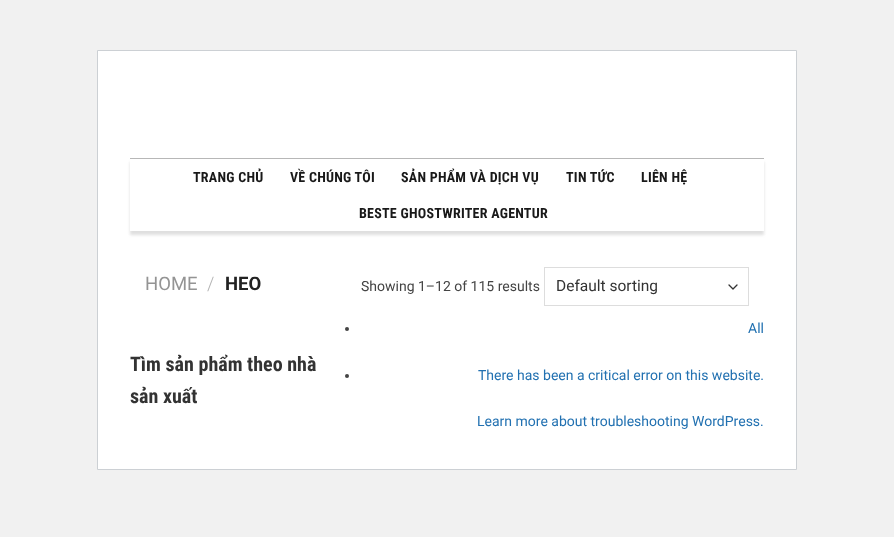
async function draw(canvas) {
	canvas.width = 894;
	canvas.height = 537;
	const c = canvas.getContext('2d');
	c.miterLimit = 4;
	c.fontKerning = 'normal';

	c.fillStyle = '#f1f1f1';
	c.fillRect(0, 0, 894, 537);
	c.fillStyle = '#fff';
	c.beginPath();
	c.rect(97.5, 50.5, 699, 419);
	c.fill();
	c.strokeStyle = '#ccd0d4';
	c.stroke();
	c.save();
	c.beginPath();
	c.moveTo(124, 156);
	c.lineTo(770, 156);
	c.lineTo(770, 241);
	c.lineTo(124, 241);
	c.closePath();
	c.moveTo(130, 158);
	c.lineTo(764, 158);
	c.lineTo(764, 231);
	c.lineTo(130, 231);
	c.closePath();
	c.clip('evenodd');
	c.fillStyle = '#c1c1c185';
	c.filter = 'blur(1.5px)';
	c.beginPath();
	c.rect(130, 162, 634, 73);
	c.fill();
	c.filter = 'none';
	c.restore();
	c.fillStyle = '#b7b7b7';
	c.fillRect(130, 158, 634, 1);
	c.letterSpacing = '0.25px';
	c.font = 'bold 14px Roboto Condensed';
	c.fillStyle = '#191919';
	for (const [text, x, y] of [
		['TRANG CHỦ', 193, 182],
		['VỀ CHÚNG TÔI', 290, 182],
		['SẢN PHẨM VÀ DỊCH VỤ', 401, 182],
		['TIN TỨC', 566, 182],
		['LIÊN HỆ', 641, 182],
		['BESTE GHOSTWRITER AGENTUR', 359, 218],
	]) {
		c.fillText(text, x, y);
	}
	c.letterSpacing = '0px';
	c.font = '18.5px Roboto';
	c.fillStyle = '#949494';
	c.fillText('HOME', 145, 290);
	c.font = '300 18.5px Roboto';
	c.fillStyle = '#b2b2b2';
	c.fillText('/', 207, 290);
	c.font = 'bold 18.5px Roboto';
	c.fillStyle = '#222';
	c.fillText('HEO', 225, 290);
	c.font = '14px Roboto';
	c.fillStyle = '#444';
	c.fillText('Showing 1–12 of 115 results', 361, 291);
	c.beginPath();
	c.moveTo(729, 285);
	c.lineTo(733, 289);
	c.lineTo(737, 285);
	c.strokeStyle = '#333';
	c.lineWidth = 1.3;
	c.lineCap = 'round';
	c.lineJoin = 'round';
	c.stroke();
	c.strokeStyle = '#ddd';
	c.lineWidth = 1;
	c.lineJoin = 'miter';
	c.strokeRect(544.5, 267.5, 204, 38);
	c.font = '15.5px Roboto';
	c.fillStyle = '#333';
	c.fillText('Default sorting', 556, 291);
	c.font = 'bold 20px Roboto Condensed';
	c.fillText('Tìm sản phẩm theo nhà', 130, 371);
	c.fillText('sản xuất', 130, 403);
	c.fillStyle = '#444';
	c.beginPath();
	c.arc(347, 329, 2, 0, 2 * Math.PI);
	c.fill();
	c.font = '14px Roboto';
	c.fillStyle = '#2271b1';
	c.fillText('All', 748, 333);
	c.fillStyle = '#444';
	c.beginPath();
	c.arc(347, 376, 2, 0, 2 * Math.PI);
	c.fill();
	c.fillStyle = '#2271b1';
	c.fillText('There has been a critical error on this website.', 478, 380);
	c.fillText('Learn more about troubleshooting WordPress.', 477, 426);
}

draw(document.querySelector('canvas'));
